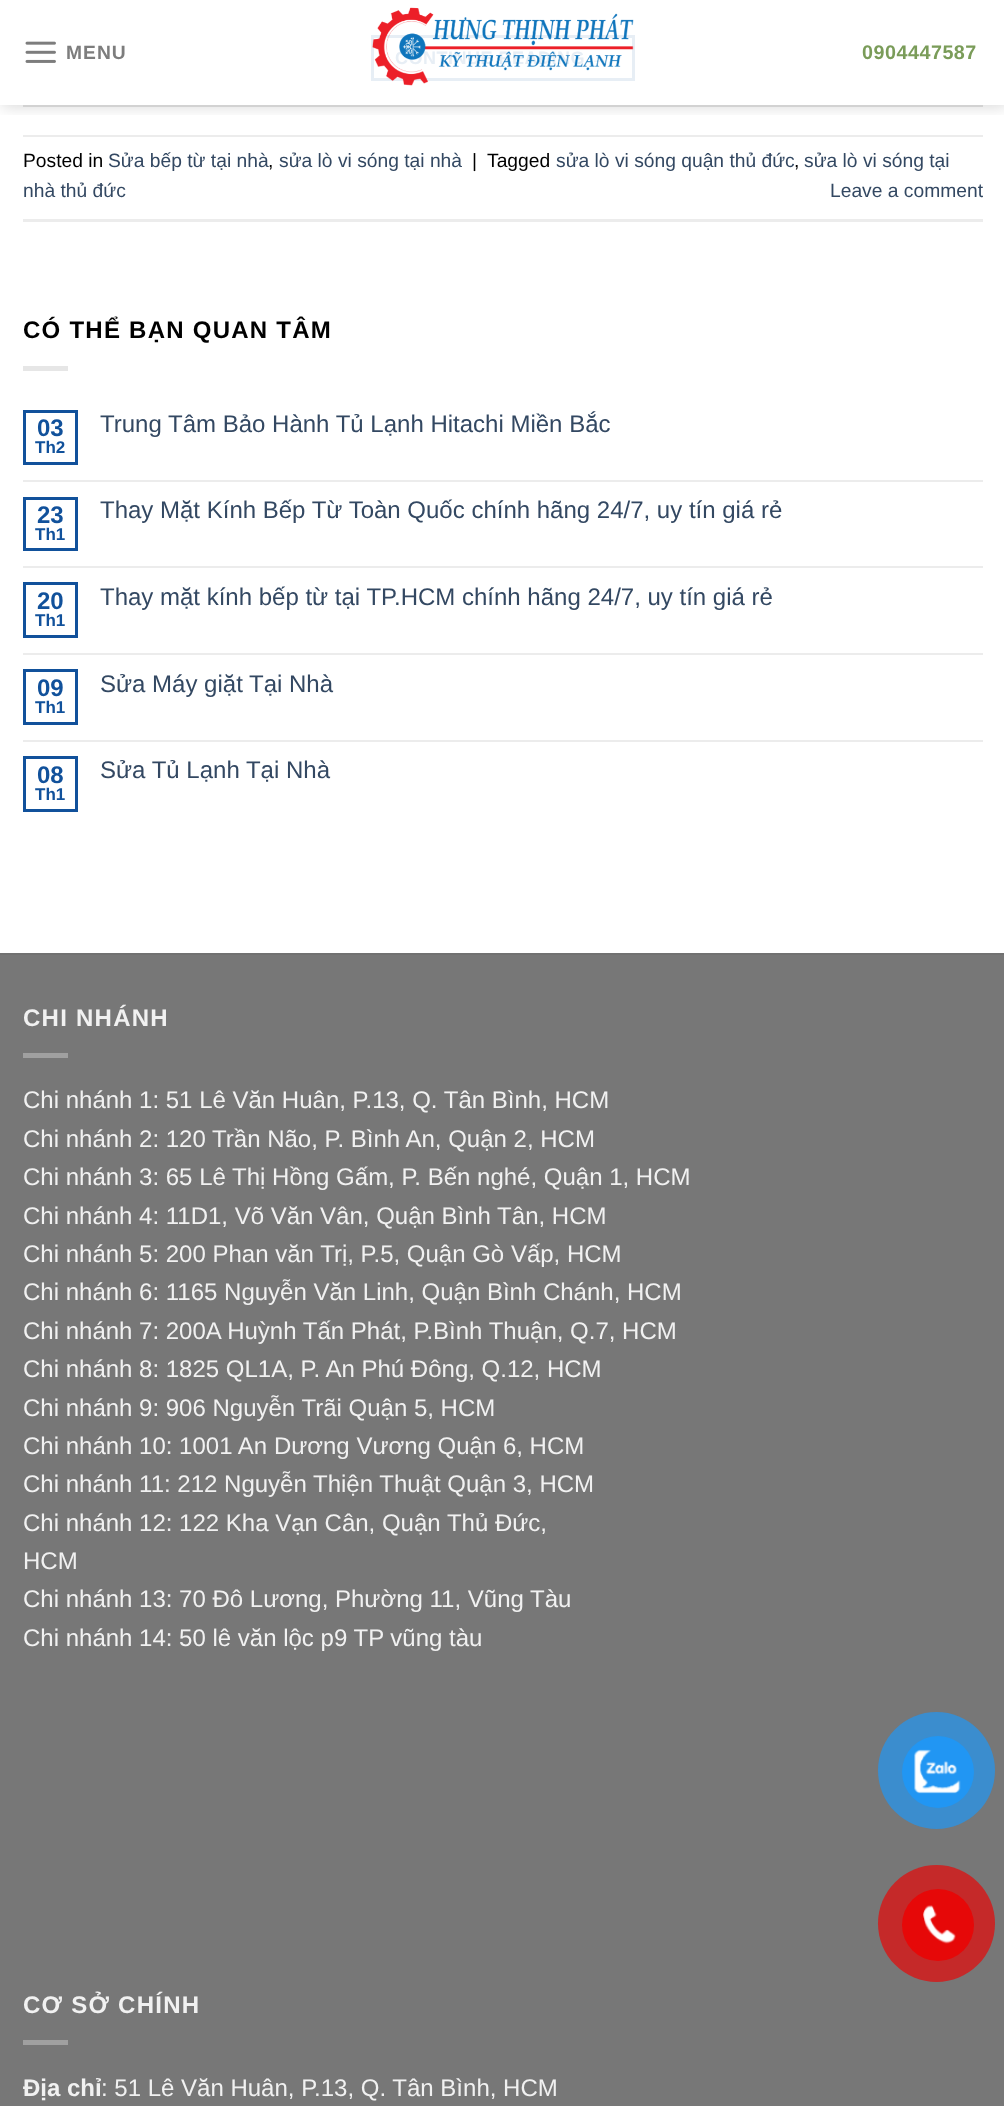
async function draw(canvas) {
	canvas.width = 1004;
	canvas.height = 2106;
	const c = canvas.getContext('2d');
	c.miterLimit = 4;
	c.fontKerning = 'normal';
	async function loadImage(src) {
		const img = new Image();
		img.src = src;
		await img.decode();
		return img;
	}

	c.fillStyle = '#fff';
	c.fillRect(0, 0, 1004, 2106);
	c.strokeStyle = '#e7eef5';
	c.lineWidth = 3;
	c.strokeRect(372.5, 36.5, 261, 43);
	c.save();
	c.beginPath();
	c.rect(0, 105, 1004, 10);
	c.clip();
	c.fillStyle = '#00000026';
	c.filter = 'blur(7.5px)';
	c.beginPath();
	c.rect(2, 2, 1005, 105);
	c.fill();
	c.filter = 'none';
	c.restore();
	c.drawImage(await loadImage('img1.png'), 25, 41, 31, 22);
	c.letterSpacing = '1px';
	c.font = 'bold 19.25px Liberation Sans';
	c.fillStyle = '#7d7d7d';
	c.fillText('MENU', 66, 59);
	c.letterSpacing = '0.5px';
	c.font = 'bold 18px Liberation Sans';
	c.fillStyle = '#e7eef5';
	c.fillText('CONTINUE READING →', 395, 64);
	c.drawImage(await loadImage('img2.png'), 372, 7, 262, 79);
	c.font = 'bold 19.75px Liberation Sans';
	c.fillStyle = '#7a9c59';
	c.fillText('0904447587', 862, 59);
	for (const [x, y, w, h, color] of [
		[23, 105, 960, 2, '#d2d2d2'],
		[23, 135, 960, 2, '#ececec'],
		[23, 219, 960, 3, '#ececec'],
	]) {
		c.fillStyle = color;
		c.fillRect(x, y, w, h);
	}
	c.letterSpacing = '0px';
	c.font = '19.25px Liberation Sans';
	c.fillStyle = '#000';
	c.fillText('Posted in', 23, 167);
	c.fillStyle = '#334862';
	c.fillText('Sửa bếp từ tại nhà', 108, 167);
	c.fillStyle = '#000';
	c.fillText(',', 268, 167);
	c.fillStyle = '#334862';
	c.fillText('sửa lò vi sóng tại nhà', 279, 167);
	c.fillStyle = '#000';
	c.fillText('|', 472, 167);
	c.fillText('Tagged', 487, 167);
	c.fillStyle = '#334862';
	c.fillText('sửa lò vi sóng quận thủ đức', 556, 167);
	c.fillStyle = '#000';
	c.fillText(',', 794, 167);
	c.fillStyle = '#334862';
	for (const [text, x, y] of [
		['sửa lò vi sóng tại', 804, 167],
		['nhà thủ đức', 23, 197],
		['Leave a comment', 830, 197],
	]) {
		c.fillText(text, x, y);
	}
	c.letterSpacing = '1.25px';
	c.font = 'bold 24px Liberation Sans';
	c.fillStyle = '#000';
	c.fillText('CÓ THỂ BẠN QUAN TÂM', 23, 338);
	c.fillStyle = '#e6e6e6';
	c.fillRect(23, 366, 45, 5);
	c.strokeStyle = '#11519b';
	c.strokeRect(24.5, 411.5, 52, 52);
	c.letterSpacing = '0px';
	c.fillStyle = '#11519b';
	c.fillText('03', 37, 436);
	c.font = 'bold 17px Liberation Sans';
	c.fillText('Th2', 35, 453);
	c.font = '24px Liberation Sans';
	c.fillStyle = '#334862';
	c.fillText('Trung Tâm Bảo Hành Tủ Lạnh Hitachi Miền Bắc', 100, 432);
	c.fillStyle = '#ececec';
	c.fillRect(23, 480, 960, 2);
	c.strokeRect(24.5, 498.5, 52, 51);
	c.font = 'bold 24px Liberation Sans';
	c.fillStyle = '#11519b';
	c.fillText('23', 37, 523);
	c.font = 'bold 17px Liberation Sans';
	c.fillText('Th1', 35, 540);
	c.font = '24px Liberation Sans';
	c.fillStyle = '#334862';
	c.fillText('Thay Mặt Kính Bếp Từ Toàn Quốc chính hãng 24/7, uy tín giá rẻ', 100, 518);
	c.fillStyle = '#ececec';
	c.fillRect(23, 566, 960, 2);
	c.strokeRect(24.5, 583.5, 52, 53);
	c.font = 'bold 24px Liberation Sans';
	c.fillStyle = '#11519b';
	c.fillText('20', 37, 609);
	c.font = 'bold 17px Liberation Sans';
	c.fillText('Th1', 35, 626);
	c.font = '24px Liberation Sans';
	c.fillStyle = '#334862';
	c.fillText('Thay mặt kính bếp từ tại TP.HCM chính hãng 24/7, uy tín giá rẻ', 100, 605);
	c.fillStyle = '#ececec';
	c.fillRect(23, 653, 960, 2);
	c.strokeRect(24.5, 670.5, 52, 53);
	c.font = 'bold 24px Liberation Sans';
	c.fillStyle = '#11519b';
	c.fillText('09', 37, 696);
	c.font = 'bold 17px Liberation Sans';
	c.fillText('Th1', 35, 713);
	c.font = '24px Liberation Sans';
	c.fillStyle = '#334862';
	c.fillText('Sửa Máy giặt Tại Nhà', 100, 692);
	c.fillStyle = '#ececec';
	c.fillRect(23, 740, 960, 2);
	c.strokeRect(24.5, 757.5, 52, 53);
	c.font = 'bold 24px Liberation Sans';
	c.fillStyle = '#11519b';
	c.fillText('08', 37, 783);
	c.font = 'bold 17px Liberation Sans';
	c.fillText('Th1', 35, 800);
	c.font = '24px Liberation Sans';
	c.fillStyle = '#334862';
	c.fillText('Sửa Tủ Lạnh Tại Nhà', 100, 778);
	c.fillStyle = '#777';
	c.fillRect(0, 955, 1004, 1151);
	c.fillStyle = '#717171';
	c.fillRect(0, 953, 1004, 2);
	c.letterSpacing = '1.25px';
	c.font = 'bold 24px Liberation Sans';
	c.fillStyle = '#f1f1f1';
	c.fillText('CHI NHÁNH', 23, 1026);
	c.fillStyle = '#a0a0a0';
	c.fillRect(23, 1053, 45, 5);
	c.letterSpacing = '0px';
	c.font = '24px Liberation Sans';
	c.fillStyle = '#f1f1f1';
	for (const [text, x, y] of [
		['Chi nhánh 1: 51 Lê Văn Huân, P.13, Q. Tân Bình, HCM', 23, 1108],
		['Chi nhánh 2: 120 Trần Não, P. Bình An, Quận 2, HCM', 23, 1147],
		['Chi nhánh 3: 65 Lê Thị Hồng Gấm, P. Bến nghé, Quận 1, HCM', 23, 1185],
		['Chi nhánh 4: 11D1, Võ Văn Vân, Quận Bình Tân, HCM', 23, 1224],
		['Chi nhánh 5: 200 Phan văn Trị, P.5, Quận Gò Vấp, HCM', 23, 1262],
		['Chi nhánh 6: 1165 Nguyễn Văn Linh, Quận Bình Chánh, HCM', 23, 1300],
		['Chi nhánh 7: 200A Huỳnh Tấn Phát, P.Bình Thuận, Q.7, HCM', 23, 1339],
		['Chi nhánh 8: 1825 QL1A, P. An Phú Đông, Q.12, HCM', 23, 1377],
		['Chi nhánh 9: 906 Nguyễn Trãi Quận 5, HCM', 23, 1416],
		['Chi nhánh 10: 1001 An Dương Vương Quận 6, HCM', 23, 1454],
		['Chi nhánh 11: 212 Nguyễn Thiện Thuật Quận 3, HCM', 23, 1492],
		['Chi nhánh 12: 122 Kha Vạn Cân, Quận Thủ Đức,', 23, 1531],
		['HCM', 23, 1569],
		['Chi nhánh 13: 70 Đô Lương, Phường 11, Vũng Tàu', 23, 1607],
		['Chi nhánh 14: 50 lê văn lộc p9 TP vũng tàu', 23, 1646],
	]) {
		c.fillText(text, x, y);
	}
	c.letterSpacing = '1.25px';
	c.font = 'bold 24px Liberation Sans';
	c.fillText('CƠ SỞ CHÍNH', 23, 2013);
	c.fillStyle = '#a0a0a0';
	c.fillRect(23, 2040, 45, 5);
	c.letterSpacing = '0px';
	c.fillStyle = '#f1f1f1';
	c.fillText('Địa chỉ', 23, 2096);
	c.font = '24px Liberation Sans';
	c.fillText(': 51 Lê Văn Huân, P.13, Q. Tân Bình, HCM', 101, 2096);
	c.fillStyle = '#3b8dce';
	c.beginPath();
	c.arc(936.5, 1770.5, 58.5, 0, 2 * Math.PI);
	c.fill();
	c.fillStyle = '#2196f3';
	c.beginPath();
	c.arc(938, 1772, 36, 0, 2 * Math.PI);
	c.fill();
	c.drawImage(await loadImage('img3.png'), 914, 1749, 47, 45);
	c.fillStyle = '#c52929';
	c.beginPath();
	c.arc(936.5, 1923.5, 58.5, 0, 2 * Math.PI);
	c.fill();
	c.fillStyle = '#e60808';
	c.beginPath();
	c.arc(938, 1925, 36, 0, 2 * Math.PI);
	c.fill();
	c.drawImage(await loadImage('img4.png'), 923, 1905, 33, 39);
}

draw(document.querySelector('canvas'));
